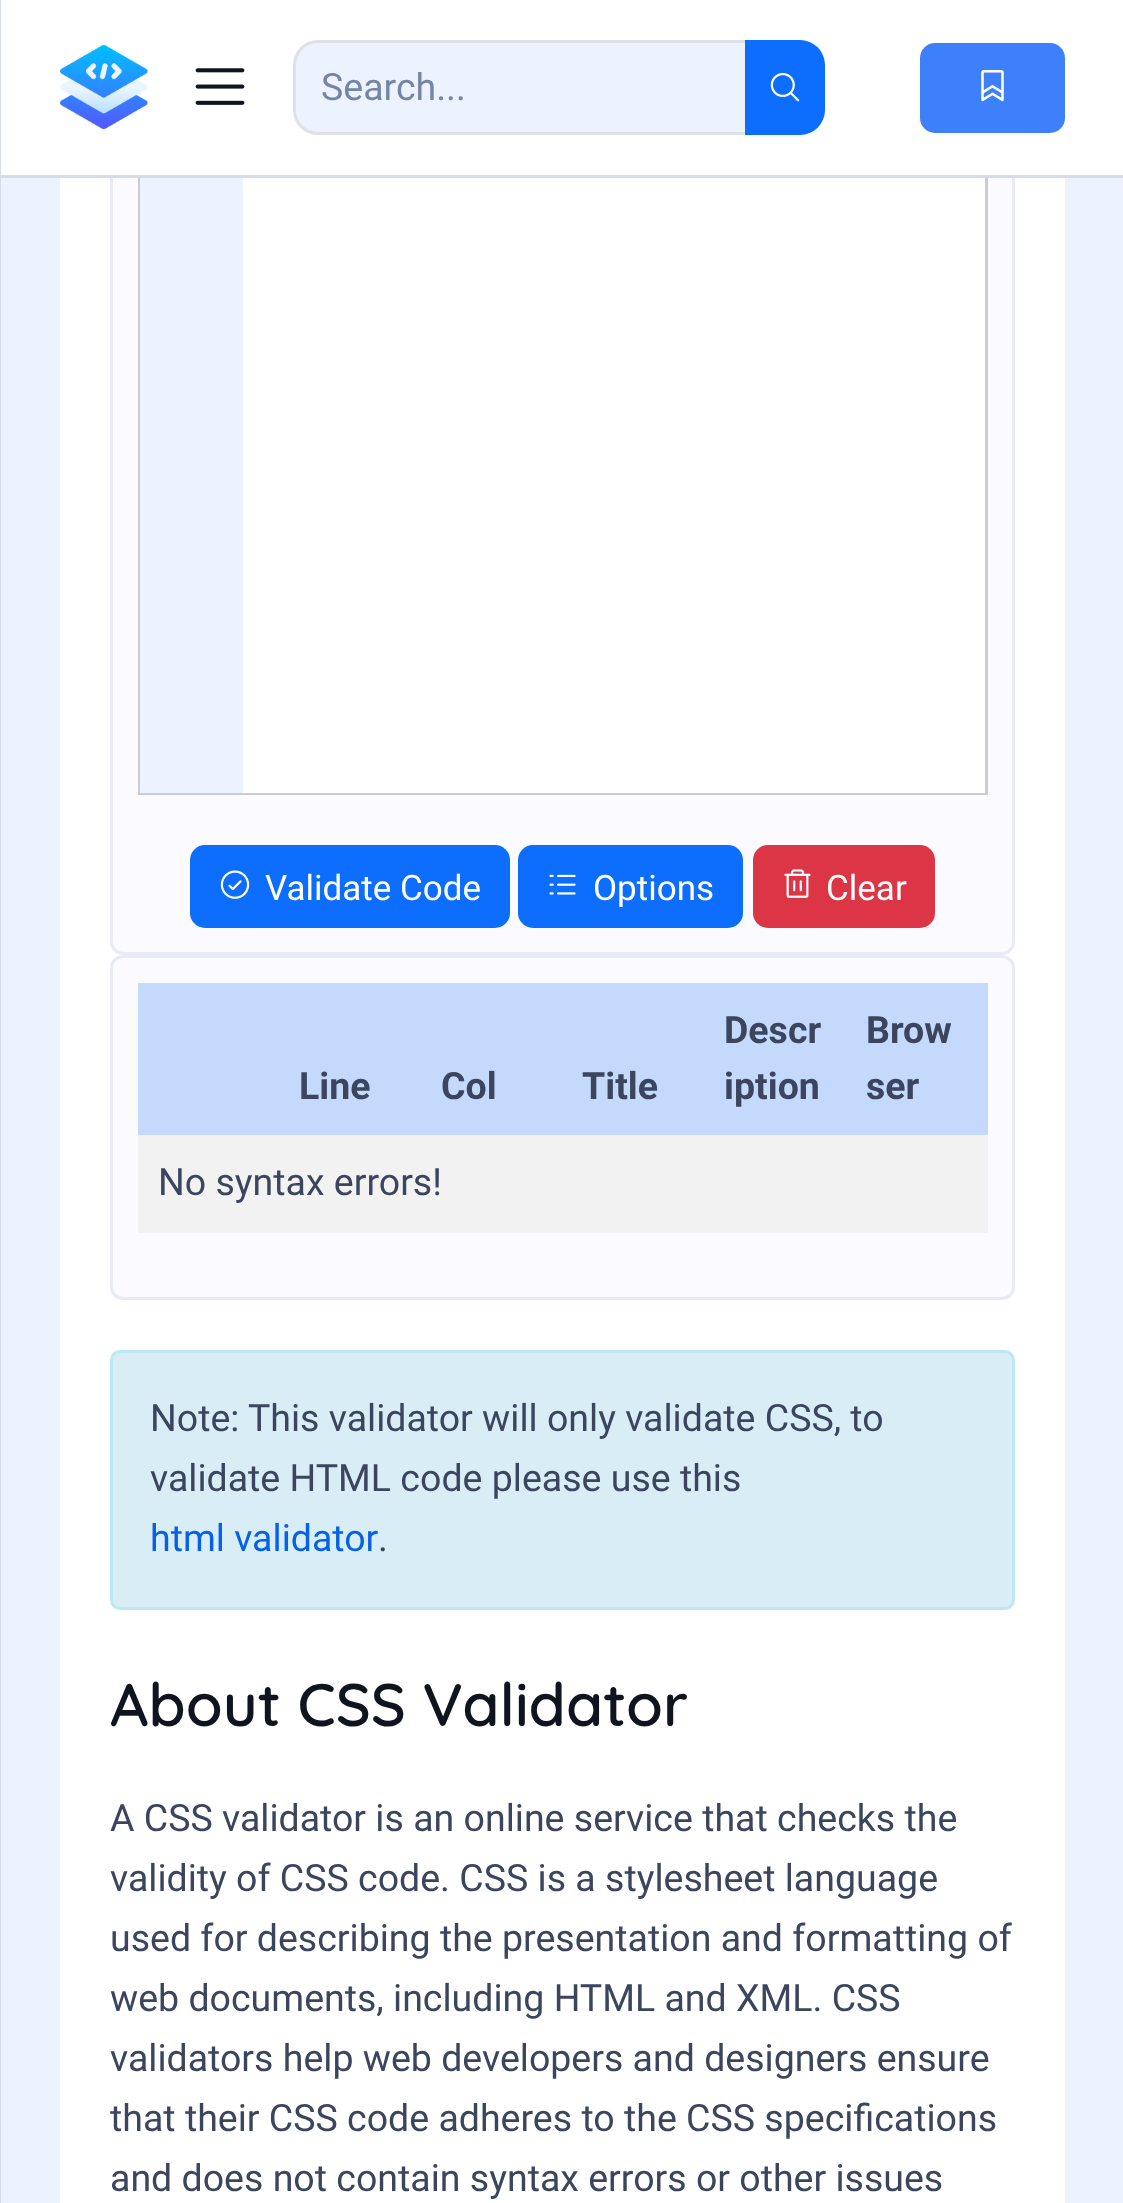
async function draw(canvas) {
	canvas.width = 1123;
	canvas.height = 2203;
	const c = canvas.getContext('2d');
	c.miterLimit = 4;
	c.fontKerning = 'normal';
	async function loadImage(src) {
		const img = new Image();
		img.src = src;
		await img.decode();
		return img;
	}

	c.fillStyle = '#ecf2fe';
	c.fillRect(0, 0, 1123, 2203);
	c.fillStyle = '#fff';
	c.fillRect(60, 178, 1005, 2025);
	c.fillStyle = '#fbfaff';
	c.beginPath();
	c.roundRect(111.5, 19.5, 902, 934, 11.5);
	c.fill();
	c.strokeStyle = '#e9eaf8';
	c.lineWidth = 3;
	c.stroke();
	c.strokeStyle = '#ccc';
	c.strokeRect(139.5, 46.5, 847, 747);
	for (const [x, y, w, h, color] of [
		[0, 175, 1123, 3, '#d5dbe7'],
		[0, 0, 1, 2203, '#d5dbe7'],
		[1, 0, 1122, 175, '#fff'],
	]) {
		c.fillStyle = color;
		c.fillRect(x, y, w, h);
	}
	c.drawImage(await loadImage('img1.png'), 60, 45, 88, 85);
	c.drawImage(await loadImage('img2.png'), 195, 68, 50, 37);
	c.fillStyle = '#ecf2fe';
	c.beginPath();
	c.roundRect(294.5, 41.5, 452, 92, [23.5, 0, 0, 23.5]);
	c.fill();
	c.strokeStyle = '#dee2e6';
	c.stroke();
	c.font = '37.5px Roboto';
	c.fillStyle = '#7585a5';
	c.fillText('Search...', 321, 100);
	c.fillStyle = '#0d6efd';
	c.beginPath();
	c.roundRect(745, 40, 80, 95, [0, 25, 25, 0]);
	c.fill();
	c.drawImage(await loadImage('img3.png'), 770, 72, 30, 30);
	c.fillStyle = '#3e80f9';
	c.beginPath();
	c.roundRect(921.5, 44.5, 142, 87, 13.5);
	c.fill();
	c.strokeStyle = '#3e80f9';
	c.stroke();
	c.drawImage(await loadImage('img4.png'), 981, 70, 23, 32);
	c.fillStyle = '#ecf2fe';
	c.fillRect(140, 178, 103, 615);
	c.fillStyle = '#fff';
	c.fillRect(243, 178, 742, 615);
	c.fillStyle = '#0d6efd';
	c.beginPath();
	c.roundRect(190, 845, 320, 83, 15);
	c.fill();
	c.drawImage(await loadImage('img5.png'), 220, 870, 30, 29);
	c.font = '35px Roboto';
	c.fillStyle = '#fff';
	c.fillText('Validate Code', 265, 900);
	c.fillStyle = '#0d6efd';
	c.beginPath();
	c.roundRect(518, 845, 225, 83, 15);
	c.fill();
	c.drawImage(await loadImage('img6.png'), 549, 874, 27, 21);
	c.fillStyle = '#fff';
	c.fillText('Options', 593, 900);
	c.fillStyle = '#dc3545';
	c.beginPath();
	c.roundRect(753, 845, 182, 83, 15);
	c.fill();
	c.drawImage(await loadImage('img7.png'), 784, 869, 27, 29);
	c.fillStyle = '#fff';
	c.fillText('Clear', 826, 900);
	c.fillStyle = '#fbfaff';
	c.beginPath();
	c.roundRect(111.5, 956.5, 902, 342, 11.5);
	c.fill();
	c.strokeStyle = '#e9eaf8';
	c.stroke();
	c.fillStyle = '#c5d9fd';
	c.fillRect(138, 983, 850, 152);
	c.font = 'bold 37.5px Roboto';
	c.fillStyle = '#3b465e';
	for (const [text, x, y] of [
		['Line', 299, 1099],
		['Col', 441, 1099],
		['Title', 582, 1099],
		['Descr', 724, 1043],
		['iption', 724, 1099],
		['Brow', 866, 1043],
		['ser', 866, 1099],
	]) {
		c.fillText(text, x, y);
	}
	c.fillStyle = '#f2f2f2';
	c.fillRect(138, 1135, 850, 98);
	c.font = '37.5px Roboto';
	c.fillStyle = '#3b465e';
	c.fillText('No syntax errors!', 158, 1195);
	c.fillStyle = '#d9edf7';
	c.beginPath();
	c.roundRect(111.5, 1351.5, 902, 257, 8.5);
	c.fill();
	c.strokeStyle = '#bce8f1';
	c.stroke();
	c.fillStyle = '#3b465e';
	c.fillText('Note: This validator will only validate CSS, to', 150, 1431);
	c.fillText('validate HTML code please use this', 150, 1491);
	c.fillStyle = '#0661e9';
	c.fillText('html validator', 150, 1551);
	c.fillStyle = '#3b465e';
	c.fillText('.', 378, 1551);
	c.font = '600 60px Quicksand';
	c.fillStyle = '#0f141f';
	c.fillText('About CSS Validator', 110, 1726);
	c.font = '37.5px Roboto';
	c.fillStyle = '#3b465e';
	for (const [text, x, y] of [
		['A CSS validator is an online service that checks the', 110, 1831],
		['validity of CSS code. CSS is a stylesheet language', 110, 1891],
		['used for describing the presentation and formatting of', 110, 1951],
		['web documents, including HTML and XML. CSS', 110, 2011],
		['validators help web developers and designers ensure', 110, 2071],
		['that their CSS code adheres to the CSS specifications', 110, 2131],
		['and does not contain syntax errors or other issues', 110, 2191],
	]) {
		c.fillText(text, x, y);
	}
}

draw(document.querySelector('canvas'));
